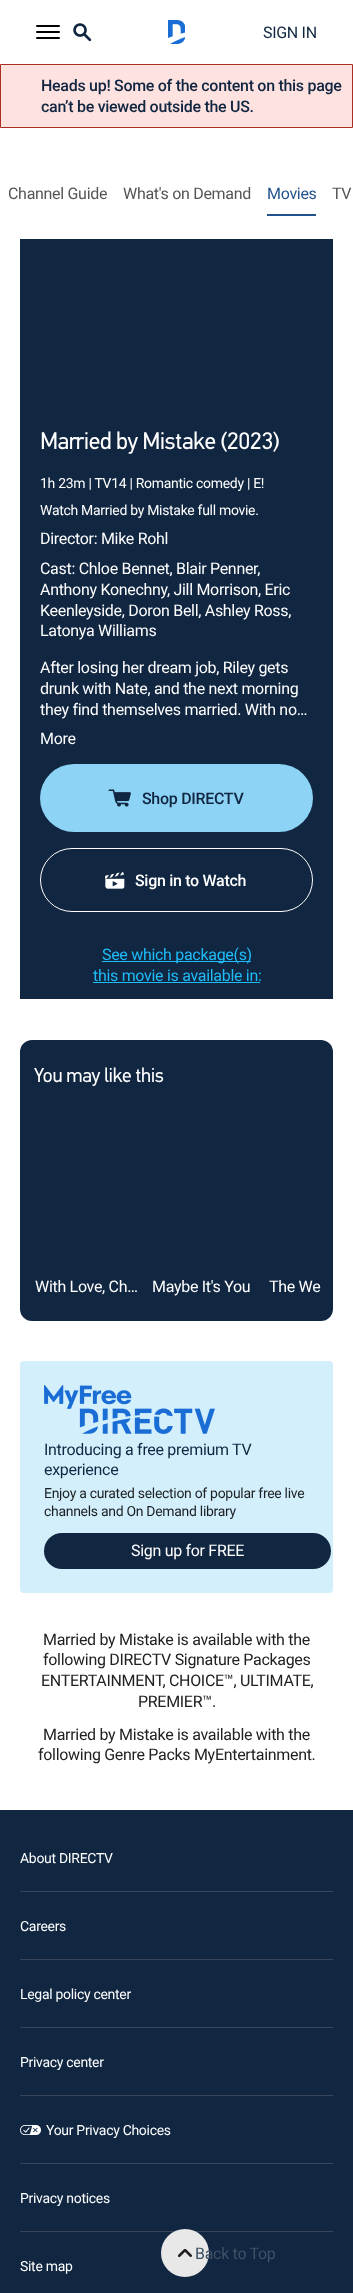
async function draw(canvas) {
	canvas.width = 353;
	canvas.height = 2293;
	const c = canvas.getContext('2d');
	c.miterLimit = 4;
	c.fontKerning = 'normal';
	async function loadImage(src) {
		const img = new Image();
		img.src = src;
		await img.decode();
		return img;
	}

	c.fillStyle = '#fff';
	c.fillRect(0, 0, 353, 2293);
	c.fillStyle = '#000';
	c.beginPath();
	c.roundRect(36, 25, 24, 2, 1);
	c.fill();
	c.beginPath();
	c.roundRect(36, 31, 24, 2, 1);
	c.fill();
	c.beginPath();
	c.roundRect(36, 37, 24, 2, 1);
	c.fill();
	c.drawImage(await loadImage('img1.png'), 73, 23, 19, 19);
	c.drawImage(await loadImage('img2.png'), 168, 20, 17, 24);
	c.letterSpacing = '-0.3px';
	c.font = '16px Roboto';
	c.fillStyle = '#102641';
	c.fillText('SIGN IN', 263, 38);
	c.fillStyle = '#fee2e0';
	c.beginPath();
	c.rect(0.5, 64.5, 352, 63);
	c.fill();
	c.strokeStyle = '#aa2e23';
	c.stroke();
	c.font = '500 16px Roboto';
	c.fillStyle = '#102641';
	c.fillText('Heads up! Some of the content on this page', 41, 91);
	c.fillText('can’t be viewed outside the US.', 41, 112);
	c.font = '16px Roboto';
	c.fillStyle = '#555';
	c.fillText('Channel Guide', 8, 199);
	c.fillText('What\'s on Demand', 123, 199);
	c.fillStyle = '#21528c';
	c.fillText('Movies', 267, 199);
	c.fillRect(267, 214, 49, 2);
	c.fillStyle = '#555';
	c.fillText('TV', 332, 199);
	c.fillStyle = '#102641';
	c.fillRect(20, 239, 313, 760);
	c.letterSpacing = '-0.5px';
	c.font = '24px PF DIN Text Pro';
	c.fillStyle = '#fff';
	c.fillText('Married by Mistake (2023)', 40, 449);
	c.letterSpacing = '-0.3px';
	c.font = '14px Roboto';
	c.fillText('1h 23m | TV14 | Romantic comedy | E!', 40, 488);
	c.fillText('Watch Married by Mistake full movie.', 40, 515);
	c.font = '16px Roboto';
	for (const [text, x, y] of [
		['Director: Mike Rohl', 40, 544],
		['Cast: Chloe Bennet, Blair Penner,', 40, 574],
		['Anthony Konechny, Jill Morrison, Eric', 40, 595],
		['Keenleyside, Doron Bell, Ashley Ross,', 40, 616],
		['Latonya Williams', 40, 636],
		['After losing her dream job, Riley gets', 40, 673],
		['drunk with Nate, and the next morning', 40, 694],
		['they find themselves married. With no…', 40, 715],
		['More', 40, 744],
	]) {
		c.fillText(text, x, y);
	}
	c.fillStyle = '#8cd3f5';
	c.beginPath();
	c.roundRect(40, 764, 273, 68, 34);
	c.fill();
	c.drawImage(await loadImage('img3.png'), 108, 789, 23, 18);
	c.font = '500 16px Roboto';
	c.fillStyle = '#102641';
	c.fillText('Shop DIRECTV', 142, 804);
	c.beginPath();
	c.roundRect(40.5, 848.5, 272, 63, 31.5);
	c.strokeStyle = '#fefefe';
	c.stroke();
	c.drawImage(await loadImage('img4.png'), 105, 872, 20, 17);
	c.fillStyle = '#fff';
	c.fillText('Sign in to Watch', 135, 886);
	c.fillStyle = '#1fbcf8';
	c.fillRect(102, 961, 149, 1);
	c.font = '16px Roboto';
	c.fillText('See which package(s)', 102, 960);
	c.fillText('this movie is available in:', 93, 981);
	c.fillRect(93, 982, 167, 1);
	c.fillStyle = '#102641';
	c.beginPath();
	c.roundRect(20, 1040, 313, 281, 12);
	c.fill();
	c.letterSpacing = '-0.4px';
	c.font = '20px PF DIN Text Pro';
	c.fillStyle = '#fff';
	c.fillText('You may like this', 34, 1082);
	c.letterSpacing = '-0.3px';
	c.font = '16px Roboto';
	for (const [text, x, y] of [
		['With Love, Ch…', 35, 1292],
		['Maybe It\'s You', 152, 1292],
		['The We', 269, 1292],
	]) {
		c.fillText(text, x, y);
	}
	c.fillStyle = '#d3effc';
	c.beginPath();
	c.roundRect(20, 1361, 313, 232, 4);
	c.fill();
	c.drawImage(await loadImage('img5.png'), 44, 1385, 171, 49);
	c.fillStyle = '#102641';
	c.fillText('Introducing a free premium TV', 44, 1455);
	c.fillText('experience', 44, 1475);
	c.font = '14px Roboto';
	c.fillStyle = '#1b1f21';
	c.fillText('Enjoy a curated selection of popular free live', 44, 1498);
	c.fillText('channels and On Demand library', 44, 1516);
	c.fillStyle = '#102641';
	c.beginPath();
	c.roundRect(44, 1533, 287, 36, 18);
	c.fill();
	c.font = '16px Roboto';
	c.fillStyle = '#fff';
	c.fillText('Sign up for FREE', 131, 1556);
	c.fillStyle = '#212121';
	for (const [text, x, y] of [
		['Married by Mistake is available with the', 43, 1645],
		['following DIRECTV Signature Packages', 43, 1665],
		['ENTERTAINMENT, CHOICE™, ULTIMATE,', 41, 1686],
		['PREMIER™.', 138, 1707],
		['Married by Mistake is available with the', 43, 1740],
		['following Genre Packs MyEntertainment.', 38, 1760],
	]) {
		c.fillText(text, x, y);
	}
	c.fillStyle = '#102641';
	c.fillRect(0, 1810, 353, 483);
	c.fillStyle = '#364558';
	c.fillRect(20, 2231, 313, 1);
	c.fillStyle = '#e8e8e8';
	c.beginPath();
	c.arc(185, 2253, 24, 0, 2 * Math.PI);
	c.fill();
	c.drawImage(await loadImage('img6.png'), 177, 2249, 15, 9);
	c.fillStyle = '#405165';
	c.fillText('Back to Top', 195, 2259);
	c.font = '14px Roboto';
	c.fillStyle = '#fff';
	c.fillText('About DIRECTV', 20, 1863);
	c.fillStyle = '#364558';
	c.fillRect(20, 1891, 313, 1);
	c.fillStyle = '#fff';
	c.fillText('Careers', 20, 1931);
	c.fillStyle = '#364558';
	c.fillRect(20, 1959, 313, 1);
	c.fillStyle = '#fff';
	c.fillText('Legal policy center', 20, 1999);
	c.fillStyle = '#364558';
	c.fillRect(20, 2027, 313, 1);
	c.fillStyle = '#fff';
	c.fillText('Privacy center', 20, 2067);
	c.fillStyle = '#364558';
	c.fillRect(20, 2095, 313, 1);
	c.drawImage(await loadImage('img7.png'), 20, 2125, 21, 10);
	c.fillStyle = '#fff';
	c.fillText('Your Privacy Choices', 46, 2135);
	c.fillStyle = '#364558';
	c.fillRect(20, 2163, 313, 1);
	c.fillStyle = '#fff';
	c.fillText('Privacy notices', 20, 2203);
	c.fillText('Site map', 20, 2271);
}

draw(document.querySelector('canvas'));
